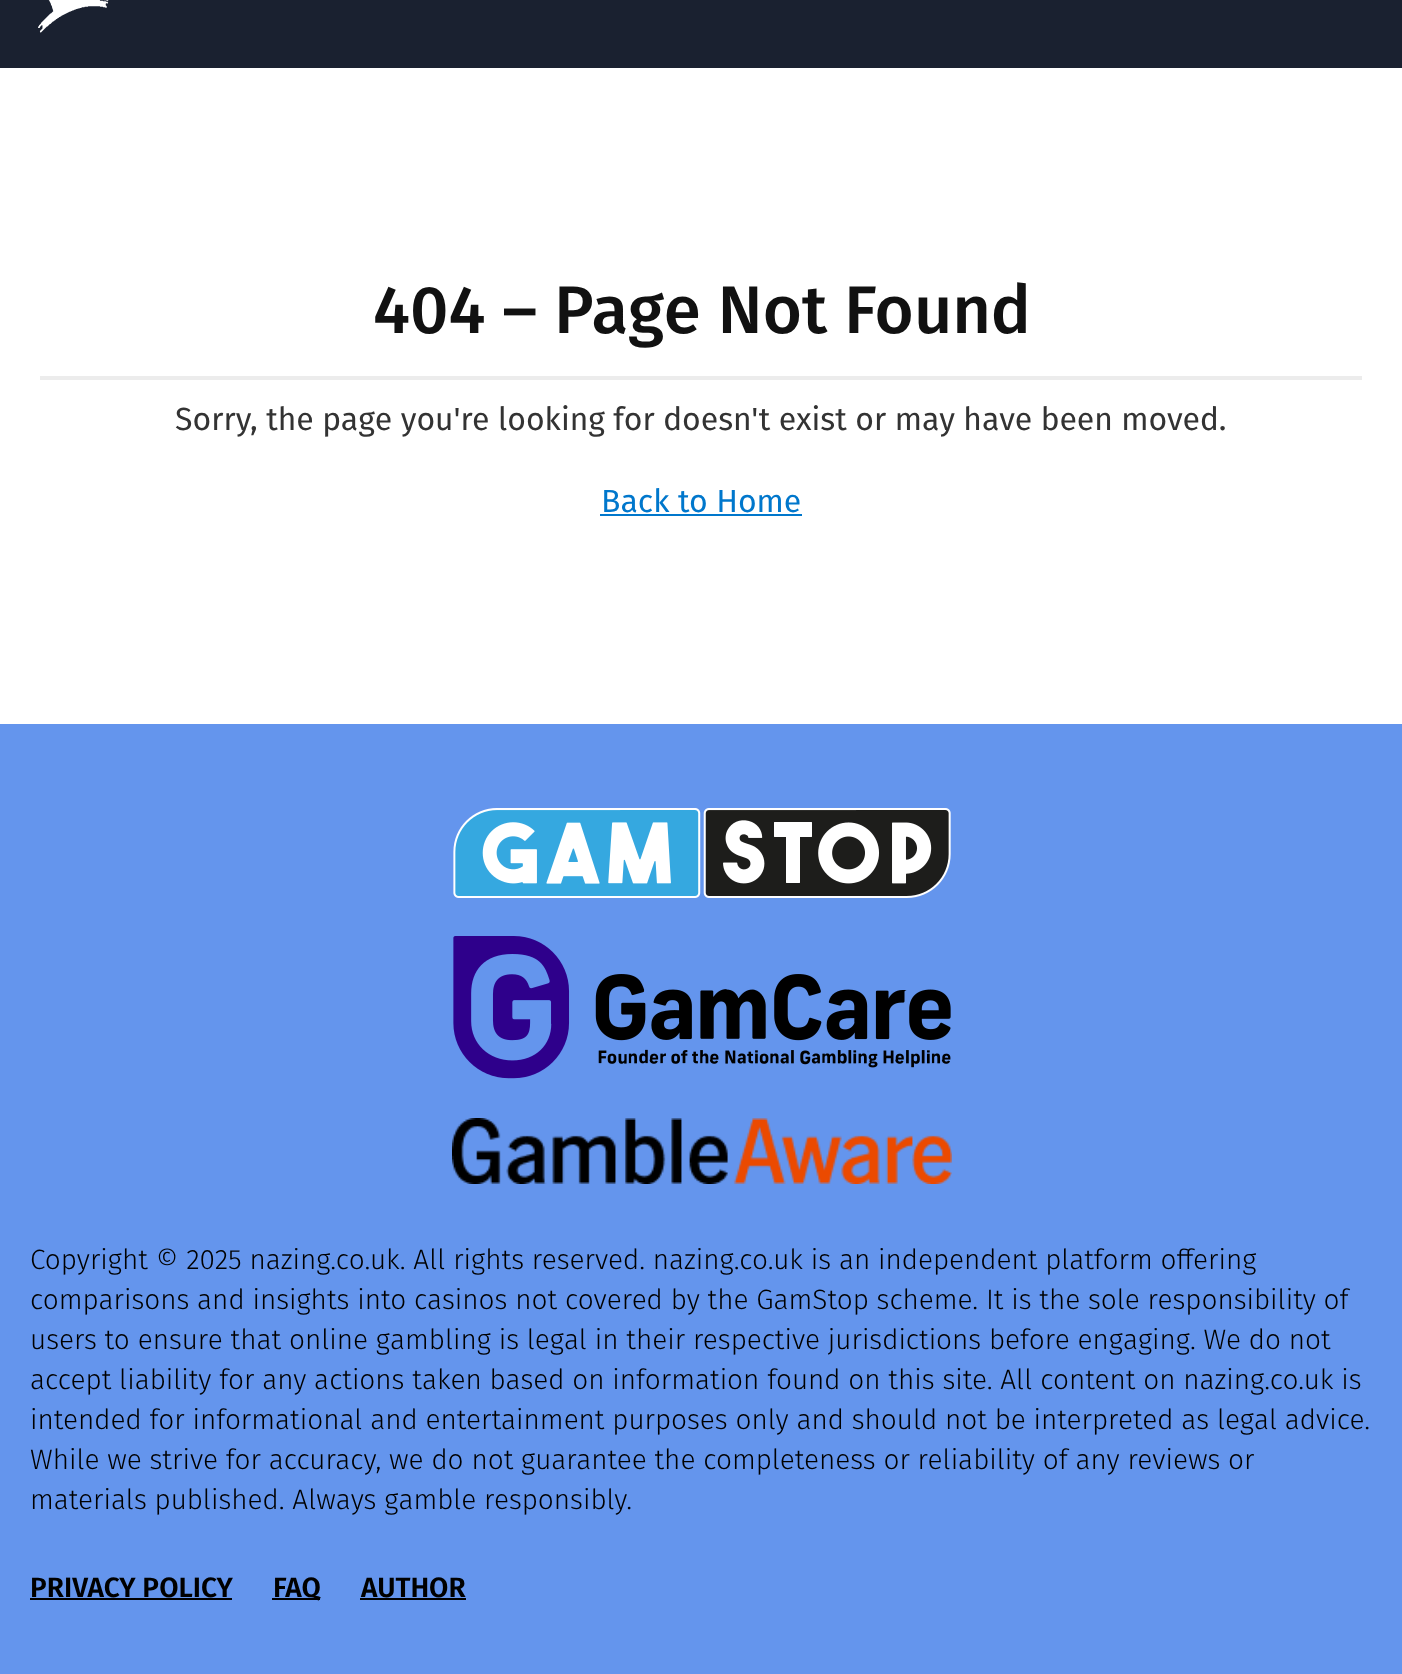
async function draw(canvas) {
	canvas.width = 1402;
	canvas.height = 1674;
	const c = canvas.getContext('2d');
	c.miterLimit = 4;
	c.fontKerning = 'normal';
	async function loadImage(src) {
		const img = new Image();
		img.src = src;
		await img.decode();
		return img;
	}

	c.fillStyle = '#fff';
	c.fillRect(0, 0, 1402, 1674);
	c.fillStyle = '#1a2130';
	c.fillRect(0, 0, 1402, 68);
	c.drawImage(await loadImage('img1.png'), 38, 0, 71, 33);
	c.fillStyle = '#ececec';
	c.fillRect(40, 376, 1322, 4);
	c.font = '500 67.25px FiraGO';
	c.fillStyle = '#111';
	c.fillText('404 – Page Not Found', 373, 333);
	c.font = '32px FiraGO';
	c.fillStyle = '#333';
	c.fillText('Sorry, the page you\'re looking for doesn\'t exist or may have been moved.', 175, 430);
	c.fillStyle = '#07c';
	c.fillText('Back to Home', 601, 512);
	c.fillRect(600, 514, 202, 2);
	c.fillStyle = '#6495ed';
	c.fillRect(0, 724, 1402, 950);
	c.drawImage(await loadImage('img2.png'), 453, 808, 498, 90);
	c.drawImage(await loadImage('img3.png'), 453, 936, 498, 143);
	c.drawImage(await loadImage('img4.png'), 452, 1118, 500, 66);
	c.font = '300 28px FiraGO';
	c.fillStyle = '#000';
	for (const [text, x, y] of [
		['Copyright © 2025 nazing.co.uk. All rights reserved. nazing.co.uk is an independent platform offering', 30, 1269],
		['comparisons and insights into casinos not covered by the GamStop scheme. It is the sole responsibility of', 30, 1309],
		['users to ensure that online gambling is legal in their respective jurisdictions before engaging. We do not', 30, 1349],
		['accept liability for any actions taken based on information found on this site. All content on nazing.co.uk is', 30, 1389],
		['intended for informational and entertainment purposes only and should not be interpreted as legal advice.', 30, 1429],
		['While we strive for accuracy, we do not guarantee the completeness or reliability of any reviews or', 30, 1469],
		['materials published. Always gamble responsibly.', 30, 1509],
	]) {
		c.fillText(text, x, y);
	}
	c.font = '600 28px FiraGO';
	c.fillText('PRIVACY POLICY', 30, 1597);
	c.fillRect(30, 1598, 202, 2);
	c.fillRect(272, 1598, 48, 2);
	c.fillText('FAQ', 273, 1597);
	c.fillText('AUTHOR', 361, 1597);
	c.fillRect(360, 1598, 106, 2);
}

draw(document.querySelector('canvas'));
